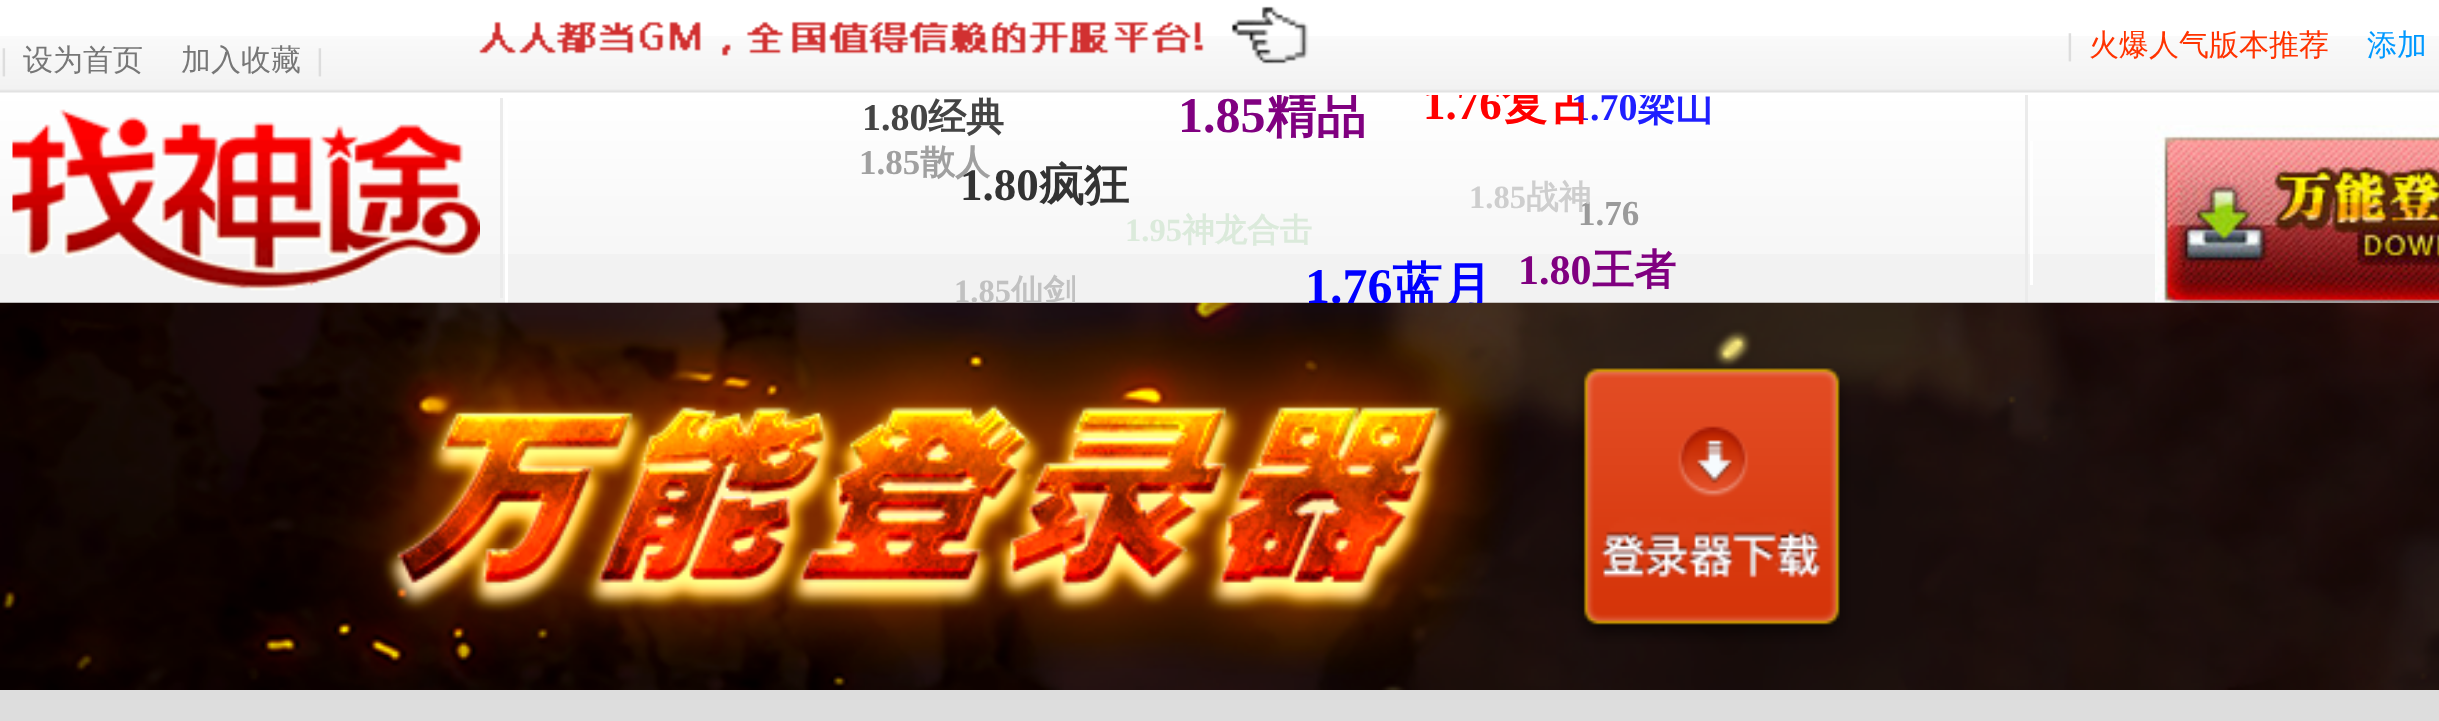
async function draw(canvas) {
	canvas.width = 2439;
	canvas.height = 721;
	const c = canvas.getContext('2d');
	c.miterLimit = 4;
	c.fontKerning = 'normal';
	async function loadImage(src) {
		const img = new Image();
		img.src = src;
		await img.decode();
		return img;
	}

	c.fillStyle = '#f2f2f2';
	c.fillRect(0, 0, 2439, 721);
	c.drawImage(await loadImage('img3.png'), 0, 95, 2439, 159);
	c.fillStyle = '#ebebeb';
	c.fillRect(2025, 93, 3, 210);
	c.fillStyle = '#fff';
	c.fillRect(505, 93, 3, 210);
	c.font = 'bold 50px WenQuanYi Zen Hei';
	c.fillStyle = '#800080';
	c.fillText('精品', 1266, 132);
	c.font = 'bold 45px Liberation Serif';
	c.fillStyle = '#f00';
	c.fillText('1.76', 1423, 119);
	c.font = 'bold 38px Liberation Serif';
	c.fillStyle = '#1f1fff';
	c.fillText('1.70', 1571, 120);
	c.font = 'bold 45px WenQuanYi Zen Hei';
	c.fillStyle = '#f00';
	c.fillText('复古', 1502, 119);
	c.font = 'bold 38px WenQuanYi Zen Hei';
	c.fillStyle = '#1f1fff';
	c.fillText('梁山', 1637, 120);
	c.fillStyle = '#fff';
	c.fillRect(0, 0, 2439, 95);
	c.drawImage(await loadImage('img1.png'), 0, 36, 2439, 57);
	c.font = '30px Liberation Sans';
	c.fillStyle = '#ddd';
	c.fillText('|', 0, 70);
	c.font = '500 30px WenQuanYi Zen Hei';
	c.fillStyle = '#777';
	c.fillText('设为首页', 23, 70);
	c.fillText('加入收藏', 181, 70);
	c.font = '30px Liberation Sans';
	c.fillStyle = '#ddd';
	c.fillText('|', 316, 70);
	c.drawImage(await loadImage('img2.png'), 479, 6, 830, 58);
	c.fillText('|', 2066, 55);
	c.font = '500 30px WenQuanYi Zen Hei';
	c.fillStyle = '#f30';
	c.fillText('火爆人气版本推荐', 2089, 55);
	c.fillStyle = '#09f';
	c.fillText('添加', 2367, 55);
	c.drawImage(await loadImage('img4.png'), 12, 109, 468, 182);
	c.fillStyle = '#ebebeb';
	c.fillRect(500, 98, 3, 200);
	c.font = 'bold 38px Liberation Serif';
	c.fillStyle = '#444';
	c.fillText('1.80', 862, 130);
	c.font = 'bold 38px WenQuanYi Zen Hei';
	c.fillText('经典', 928, 130);
	c.font = 'bold 50px Liberation Serif';
	c.fillStyle = '#800080';
	c.fillText('1.85', 1178, 132);
	c.font = 'bold 35px Liberation Serif';
	c.fillStyle = '#a0a0a0';
	c.fillText('1.85', 859, 174);
	c.font = 'bold 35px WenQuanYi Zen Hei';
	c.fillText('散人', 920, 174);
	c.font = 'bold 45px Liberation Serif';
	c.fillStyle = '#333';
	c.fillText('1.80', 960, 200);
	c.font = 'bold 45px WenQuanYi Zen Hei';
	c.fillText('疯狂', 1039, 200);
	c.font = 'bold 32.5px Liberation Serif';
	c.fillStyle = '#dbeadb';
	c.fillText('1.95', 1125, 241);
	c.font = 'bold 32.5px WenQuanYi Zen Hei';
	c.fillText('神龙合击', 1182, 241);
	c.font = 'bold 32.5px Liberation Serif';
	c.fillStyle = '#cecece';
	c.fillText('1.85', 1469, 208);
	c.font = 'bold 35px Liberation Serif';
	c.fillStyle = '#9a9a9a';
	c.fillText('1.76', 1578, 225);
	c.font = 'bold 32.5px WenQuanYi Zen Hei';
	c.fillStyle = '#cecece';
	c.fillText('战神', 1526, 208);
	c.drawImage(await loadImage('img5.png'), 2155, 125, 284, 178);
	c.drawImage(await loadImage('img6.png'), 0, 302, 2439, 388);
	c.font = 'bold 32.5px Liberation Serif';
	c.fillStyle = '#c1c1c1';
	c.fillText('1.85', 954, 302);
	c.save();
	c.beginPath();
	c.rect(508, 93, 1517, 210);
	c.clip();
	c.font = 'bold 32.5px WenQuanYi Zen Hei';
	c.fillText('仙剑', 1011, 302);
	c.font = 'bold 50px Liberation Serif';
	c.fillStyle = '#00f';
	c.fillText('1.76', 1305, 303);
	c.font = 'bold 50px WenQuanYi Zen Hei';
	c.fillText('蓝月', 1392, 303);
	c.restore();
	c.font = 'bold 42px Liberation Serif';
	c.fillStyle = '#800080';
	c.fillText('1.80', 1518, 284);
	c.font = 'bold 42px WenQuanYi Zen Hei';
	c.fillText('王者', 1592, 284);
	c.fillStyle = '#fff';
	c.fillRect(2030, 141, 3, 144);
	c.fillStyle = '#ddd';
	c.fillRect(0, 690, 2439, 31);
}

draw(document.querySelector('canvas'));
